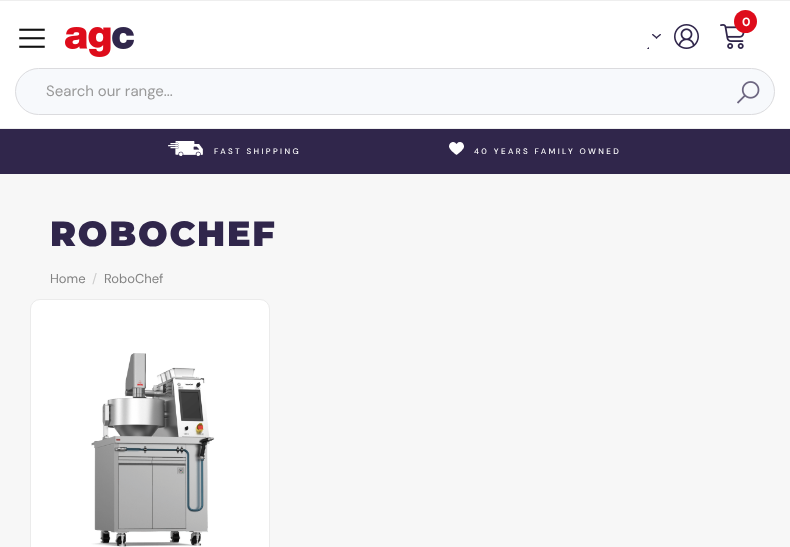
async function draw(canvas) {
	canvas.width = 790;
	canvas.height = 547;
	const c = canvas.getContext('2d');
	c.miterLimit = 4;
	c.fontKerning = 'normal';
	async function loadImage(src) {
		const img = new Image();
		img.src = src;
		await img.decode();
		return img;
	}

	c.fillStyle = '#f7f7f7';
	c.fillRect(0, 0, 790, 547);
	c.fillStyle = '#fff';
	c.fillRect(0, 1, 790, 127);
	c.fillStyle = '#eee';
	c.fillRect(0, 128, 790, 1);
	c.drawImage(await loadImage('img1.png'), 720, 24, 25, 25);
	c.fillStyle = '#de0c1b';
	c.beginPath();
	c.arc(745.5, 21.5, 11.5, 0, 2 * Math.PI);
	c.fill();
	c.letterSpacing = '-1px';
	c.font = 'bold 12px DM Sans';
	c.fillStyle = '#fff';
	c.fillText('0', 742, 26);
	c.drawImage(await loadImage('img2.png'), 652, 34, 9, 5);
	c.drawImage(await loadImage('img3.png'), 647, 47, 2, 2);
	c.drawImage(await loadImage('img4.png'), 674, 24, 25, 25);
	c.drawImage(await loadImage('img5.png'), 19, 28, 26, 20);
	c.drawImage(await loadImage('img6.png'), 65, 27, 69, 30);
	c.fillStyle = '#eee';
	c.fillRect(0, 0, 790, 1);
	c.fillStyle = '#f7f9fc';
	c.beginPath();
	c.roundRect(15.5, 68.5, 759, 46, 23);
	c.fill();
	c.strokeStyle = '#dbdbde';
	c.stroke();
	c.letterSpacing = '0px';
	c.font = '15px DM Sans';
	c.fillStyle = '#999';
	c.fillText('Search our range...', 46, 96);
	c.drawImage(await loadImage('img7.png'), 737, 81, 23, 23);
	c.fillStyle = '#30264b';
	c.fillRect(0, 129, 790, 45);
	c.drawImage(await loadImage('img8.png'), 168, 141, 35, 15);
	c.letterSpacing = '2.4px';
	c.font = '500 8px DM Sans';
	c.fillStyle = '#fff';
	c.fillText('FAST SHIPPING', 214, 154);
	c.drawImage(await loadImage('img9.png'), 449, 142, 15, 13);
	c.fillText('40 YEARS FAMILY OWNED', 474, 154);
	c.letterSpacing = '1.75px';
	c.font = '900 35px Montserrat';
	c.fillStyle = '#30264b';
	c.fillText('ROBOCHEF', 50, 246);
	c.letterSpacing = '0px';
	c.font = '13px DM Sans';
	c.fillStyle = '#828282';
	c.fillText('Home', 50, 283);
	c.fillStyle = '#ccc';
	c.fillText('/', 92, 283);
	c.fillStyle = '#828282';
	c.fillText('RoboChef', 104, 283);
	c.fillStyle = '#fff';
	c.beginPath();
	c.roundRect(30.5, 299.5, 239, 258, 9.5);
	c.fill();
	c.strokeStyle = '#ebebeb';
	c.stroke();
	c.drawImage(await loadImage('img10.png'), 91, 353, 124, 194);
}

draw(document.querySelector('canvas'));
